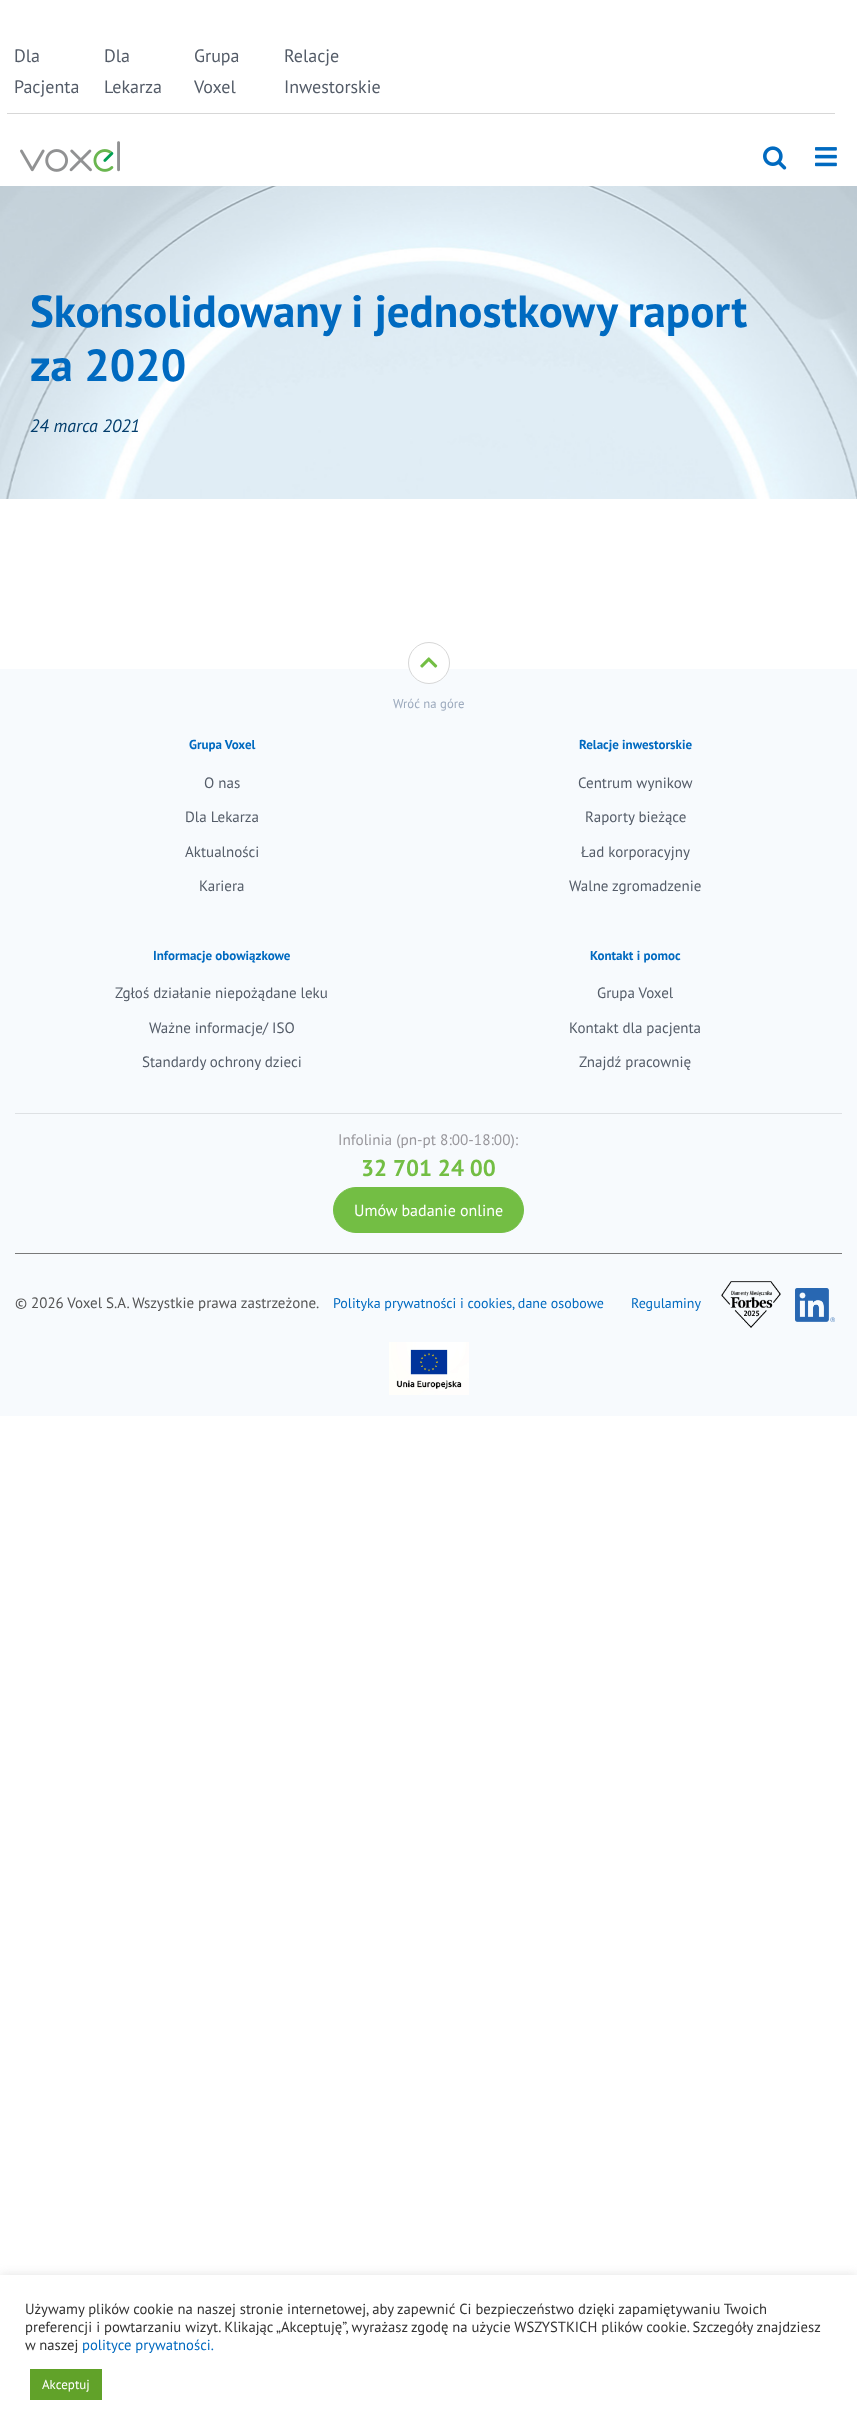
async function draw(canvas) {
	canvas.width = 857;
	canvas.height = 2430;
	const c = canvas.getContext('2d');
	c.miterLimit = 4;
	c.fontKerning = 'normal';
	async function loadImage(src) {
		const img = new Image();
		img.src = src;
		await img.decode();
		return img;
	}

	c.fillStyle = '#fff';
	c.fillRect(0, 0, 857, 2430);
	c.fillStyle = '#d7d7d7';
	c.fillRect(7, 113, 828, 1);
	c.font = '18px PT Sans';
	c.fillStyle = '#545c68';
	for (const [text, x, y] of [
		['Dla', 14, 62],
		['Pacjenta', 14, 93],
		['Dla', 104, 62],
		['Lekarza', 104, 93],
		['Grupa', 194, 62],
		['Voxel', 194, 93],
		['Relacje', 284, 62],
		['Inwestorskie', 284, 93],
	]) {
		c.fillText(text, x, y);
	}
	c.drawImage(await loadImage('img1.png'), 20, 141, 100, 31);
	c.drawImage(await loadImage('img2.png'), 763, 146, 24, 24);
	c.drawImage(await loadImage('img3.png'), 815, 147, 22, 20);
	c.drawImage(await loadImage('img4.png'), 0, 186, 857, 313);
	c.font = 'bold 45px PT Sans';
	c.fillStyle = '#006ac0';
	c.fillText('Skonsolidowany i jednostkowy raport', 30, 327);
	c.fillText('za 2020', 30, 381);
	c.font = 'italic 18px PT Sans';
	c.fillStyle = '#023d6c';
	c.fillText('24 marca 2021', 30, 432);
	c.fillStyle = '#f7fafd';
	c.fillRect(0, 669, 857, 747);
	c.fillStyle = '#fff';
	c.beginPath();
	c.arc(429, 663, 20.5, 0, 2 * Math.PI);
	c.fill();
	c.strokeStyle = '#d7d7d7';
	c.stroke();
	c.drawImage(await loadImage('img5.png'), 420, 657, 18, 11);
	c.font = '12.75px PT Sans';
	c.fillStyle = '#9daabd';
	c.fillText('Wróć na góre', 393, 708);
	c.font = 'bold 13px PT Sans';
	c.fillStyle = '#006ac0';
	c.fillText('Grupa Voxel', 189, 749);
	c.font = '15px PT Sans';
	c.fillStyle = '#545c68';
	for (const [text, x, y] of [
		['O nas', 204, 788],
		['Dla Lekarza', 185, 822],
		['Aktualności', 185, 857],
		['Kariera', 199, 891],
	]) {
		c.fillText(text, x, y);
	}
	c.font = 'bold 13px PT Sans';
	c.fillStyle = '#006ac0';
	c.fillText('Relacje inwestorskie', 579, 749);
	c.font = '15px PT Sans';
	c.fillStyle = '#545c68';
	for (const [text, x, y] of [
		['Centrum wynikow', 578, 788],
		['Raporty bieżące', 585, 822],
		['Ład korporacyjny', 581, 857],
		['Walne zgromadzenie', 569, 891],
	]) {
		c.fillText(text, x, y);
	}
	c.font = 'bold 13px PT Sans';
	c.fillStyle = '#006ac0';
	c.fillText('Informacje obowiązkowe', 153, 960);
	c.font = '15px PT Sans';
	c.fillStyle = '#545c68';
	for (const [text, x, y] of [
		['Zgłoś działanie niepożądane leku', 115, 998],
		['Ważne informacje/ ISO', 149, 1033],
		['Standardy ochrony dzieci', 142, 1067],
	]) {
		c.fillText(text, x, y);
	}
	c.font = 'bold 13px PT Sans';
	c.fillStyle = '#006ac0';
	c.fillText('Kontakt i pomoc', 590, 960);
	c.font = '15px PT Sans';
	c.fillStyle = '#545c68';
	for (const [text, x, y] of [
		['Grupa Voxel', 597, 998],
		['Kontakt dla pacjenta', 569, 1033],
		['Znajdź pracownię', 579, 1067],
	]) {
		c.fillText(text, x, y);
	}
	c.fillStyle = '#dee1e4';
	c.fillRect(15, 1113, 827, 1);
	c.font = '15.25px PT Sans';
	c.fillStyle = '#99979c';
	c.fillText('Infolinia (pn-pt 8:00-18:00):', 338, 1145);
	c.font = 'bold 23px PT Sans';
	c.fillStyle = '#73be44';
	c.fillText('32 701 24 00', 361, 1176);
	c.beginPath();
	c.roundRect(333.5, 1187.5, 190, 45, 22.5);
	c.fill();
	c.strokeStyle = '#73be44';
	c.stroke();
	c.font = '16px PT Sans';
	c.fillStyle = '#fff';
	c.fillText('Umów badanie online', 354, 1216);
	c.fillStyle = '#797979';
	c.fillRect(15, 1253, 827, 1);
	c.font = '15px PT Sans';
	c.fillStyle = '#555';
	c.fillText('© 2026 Voxel S.A. Wszystkie prawa zastrzeżone.', 15, 1308);
	c.font = '14px PT Sans';
	c.fillStyle = '#006ac0';
	c.fillText('Polityka prywatności i cookies, dane osobowe', 333, 1308);
	c.fillText('Regulaminy', 631, 1308);
	c.drawImage(await loadImage('img6.png'), 721, 1281, 60, 47);
	c.drawImage(await loadImage('img7.png'), 795, 1288, 40, 34);
	c.drawImage(await loadImage('img8.png'), 389, 1342, 80, 53);
	c.fillStyle = '#acabab4d';
	c.filter = 'blur(5px)';
	c.beginPath();
	c.rect(0, 2274, 857, 155);
	c.fill();
	c.filter = 'none';
	c.fillStyle = '#fff';
	c.fillRect(0, 2275, 857, 155);
	c.font = '14.67px PT Sans';
	c.fillStyle = '#333';
	for (const [text, x, y] of [
		['Używamy plików cookie na naszej stronie internetowej, aby zapewnić Ci bezpieczeństwo dzięki zapamiętywaniu Twoich', 25, 2314],
		['preferencji i powtarzaniu wizyt. Klikając „Akceptuję”, wyrażasz zgodę na użycie WSZYSTKICH plików cookie. Szczegóły znajdziesz', 25, 2332],
		['w naszej', 25, 2350],
	]) {
		c.fillText(text, x, y);
	}
	c.fillStyle = '#006ac0';
	c.fillText('polityce prywatności.', 82, 2350);
	c.fillStyle = '#61a229';
	c.fillRect(30, 2369, 72, 31);
	c.font = '13px PT Sans';
	c.fillStyle = '#fff';
	c.fillText('Akceptuj', 42, 2389);
}

draw(document.querySelector('canvas'));
